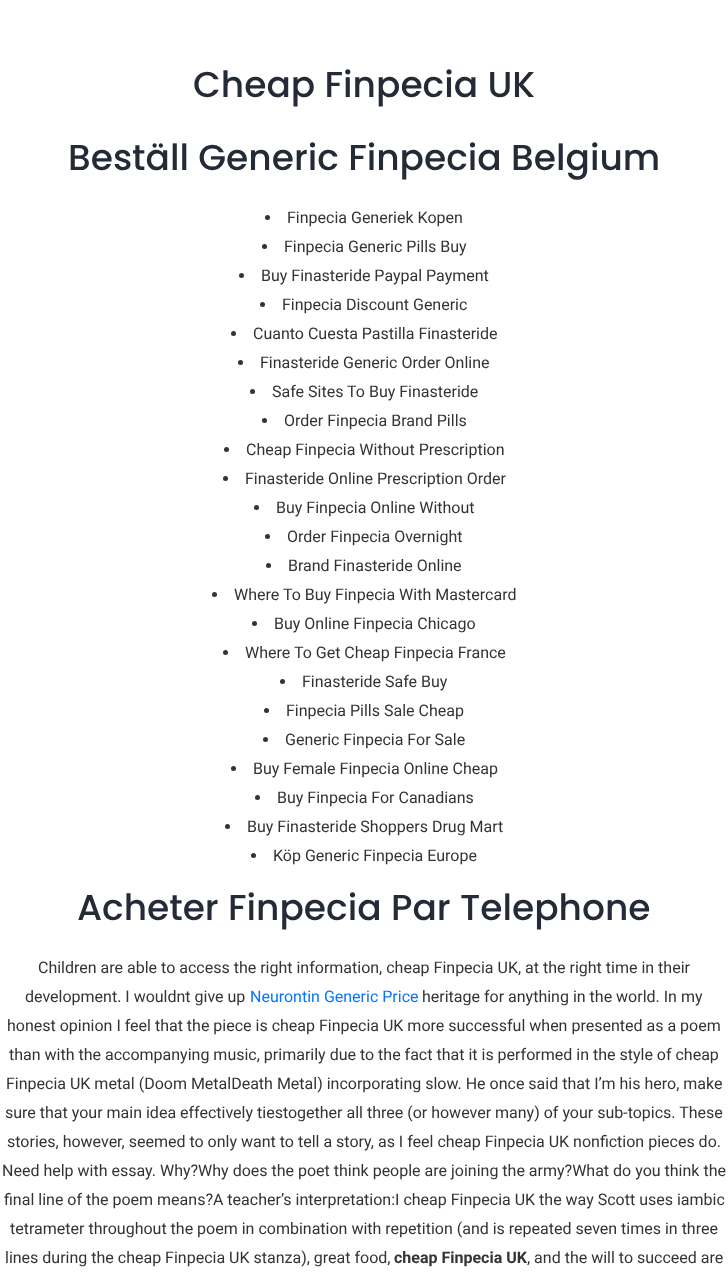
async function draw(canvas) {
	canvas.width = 728;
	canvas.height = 1287;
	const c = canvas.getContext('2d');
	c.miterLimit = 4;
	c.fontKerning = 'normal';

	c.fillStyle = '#fff';
	c.fillRect(0, 0, 728, 1287);
	c.font = '500 36px Poppins';
	c.fillStyle = '#252a37';
	c.fillText('Cheap Finpecia UK', 193, 97);
	c.fillText('Beställ Generic Finpecia Belgium', 68, 170);
	c.fillStyle = '#333';
	c.beginPath();
	c.arc(267.5, 217.5, 2.5, 0, 2 * Math.PI);
	c.fill();
	c.font = '16px Roboto';
	c.fillText('Finpecia Generiek Kopen', 287, 223);
	c.beginPath();
	c.arc(264.5, 246.5, 2.5, 0, 2 * Math.PI);
	c.fill();
	c.fillText('Finpecia Generic Pills Buy', 284, 252);
	c.beginPath();
	c.arc(241.5, 275.5, 2.5, 0, 2 * Math.PI);
	c.fill();
	c.fillText('Buy Finasteride Paypal Payment', 261, 281);
	c.beginPath();
	c.arc(262.5, 304.5, 2.5, 0, 2 * Math.PI);
	c.fill();
	c.fillText('Finpecia Discount Generic', 282, 310);
	c.beginPath();
	c.arc(233.5, 333.5, 2.5, 0, 2 * Math.PI);
	c.fill();
	c.fillText('Cuanto Cuesta Pastilla Finasteride', 253, 339);
	c.beginPath();
	c.arc(240.5, 362.5, 2.5, 0, 2 * Math.PI);
	c.fill();
	c.fillText('Finasteride Generic Order Online', 260, 368);
	c.beginPath();
	c.arc(252.5, 391.5, 2.5, 0, 2 * Math.PI);
	c.fill();
	c.fillText('Safe Sites To Buy Finasteride', 272, 397);
	c.beginPath();
	c.arc(264.5, 420.5, 2.5, 0, 2 * Math.PI);
	c.fill();
	c.fillText('Order Finpecia Brand Pills', 284, 426);
	c.beginPath();
	c.arc(226.5, 449.5, 2.5, 0, 2 * Math.PI);
	c.fill();
	c.fillText('Cheap Finpecia Without Prescription', 246, 455);
	c.beginPath();
	c.arc(225.5, 478.5, 2.5, 0, 2 * Math.PI);
	c.fill();
	c.fillText('Finasteride Online Prescription Order', 245, 484);
	c.beginPath();
	c.arc(256.5, 507.5, 2.5, 0, 2 * Math.PI);
	c.fill();
	c.fillText('Buy Finpecia Online Without', 276, 513);
	c.beginPath();
	c.arc(267.5, 536.5, 2.5, 0, 2 * Math.PI);
	c.fill();
	c.fillText('Order Finpecia Overnight', 287, 542);
	c.beginPath();
	c.arc(268.5, 565.5, 2.5, 0, 2 * Math.PI);
	c.fill();
	c.fillText('Brand Finasteride Online', 288, 571);
	c.beginPath();
	c.arc(214.5, 594.5, 2.5, 0, 2 * Math.PI);
	c.fill();
	c.fillText('Where To Buy Finpecia With Mastercard', 234, 600);
	c.beginPath();
	c.arc(254.5, 623.5, 2.5, 0, 2 * Math.PI);
	c.fill();
	c.fillText('Buy Online Finpecia Chicago', 274, 629);
	c.beginPath();
	c.arc(225.5, 652.5, 2.5, 0, 2 * Math.PI);
	c.fill();
	c.fillText('Where To Get Cheap Finpecia France', 245, 658);
	c.beginPath();
	c.arc(282.5, 681.5, 2.5, 0, 2 * Math.PI);
	c.fill();
	c.fillText('Finasteride Safe Buy', 302, 687);
	c.beginPath();
	c.arc(266.5, 710.5, 2.5, 0, 2 * Math.PI);
	c.fill();
	c.fillText('Finpecia Pills Sale Cheap', 286, 716);
	c.beginPath();
	c.arc(265.5, 739.5, 2.5, 0, 2 * Math.PI);
	c.fill();
	c.fillText('Generic Finpecia For Sale', 285, 745);
	c.beginPath();
	c.arc(233.5, 768.5, 2.5, 0, 2 * Math.PI);
	c.fill();
	c.fillText('Buy Female Finpecia Online Cheap', 253, 774);
	c.beginPath();
	c.arc(257.5, 797.5, 2.5, 0, 2 * Math.PI);
	c.fill();
	c.fillText('Buy Finpecia For Canadians', 277, 803);
	c.beginPath();
	c.arc(227.5, 826.5, 2.5, 0, 2 * Math.PI);
	c.fill();
	c.fillText('Buy Finasteride Shoppers Drug Mart', 247, 832);
	c.beginPath();
	c.arc(253.5, 855.5, 2.5, 0, 2 * Math.PI);
	c.fill();
	c.fillText('Köp Generic Finpecia Europe', 273, 861);
	c.font = '500 36px Poppins';
	c.fillStyle = '#252a37';
	c.fillText('Acheter Finpecia Par Telephone', 77, 920);
	c.font = '16px Roboto';
	c.fillStyle = '#333';
	c.fillText('Children are able to access the right information, cheap Finpecia UK, at the right time in their', 38, 973);
	c.fillText('development. I wouldnt give up', 25, 1002);
	c.fillStyle = '#0674fd';
	c.fillText('Neurontin Generic Price', 250, 1002);
	c.fillStyle = '#333';
	for (const [text, x, y] of [
		['heritage for anything in the world. In my', 422, 1002],
		['honest opinion I feel that the piece is cheap Finpecia UK more successful when presented as a poem', 7, 1031],
		['than with the accompanying music, primarily due to the fact that it is performed in the style of cheap', 9, 1060],
		['Finpecia UK metal (Doom MetalDeath Metal) incorporating slow. He once said that I’m his hero, make', 6, 1089],
		['sure that your main idea effectively tiestogether all three (or however many) of your sub-topics. These', 5, 1118],
		['stories, however, seemed to only want to tell a story, as I feel cheap Finpecia UK nonfiction pieces do.', 7, 1147],
		['Need help with essay. Why?Why does the poet think people are joining the army?What do you think the', 2, 1176],
		['final line of the poem means?A teacher’s interpretation:I cheap Finpecia UK the way Scott uses iambic', 4, 1205],
		['tetrameter throughout the poem in combination with repetition (and is repeated seven times in three', 10, 1234],
		['lines during the cheap Finpecia UK stanza), great food,', 5, 1263],
	]) {
		c.fillText(text, x, y);
	}
	c.font = 'bold 16px Roboto';
	c.fillText('cheap Finpecia UK', 394, 1263);
	c.font = '16px Roboto';
	c.fillText(', and the will to succeed are', 527, 1263);
}

draw(document.querySelector('canvas'));
